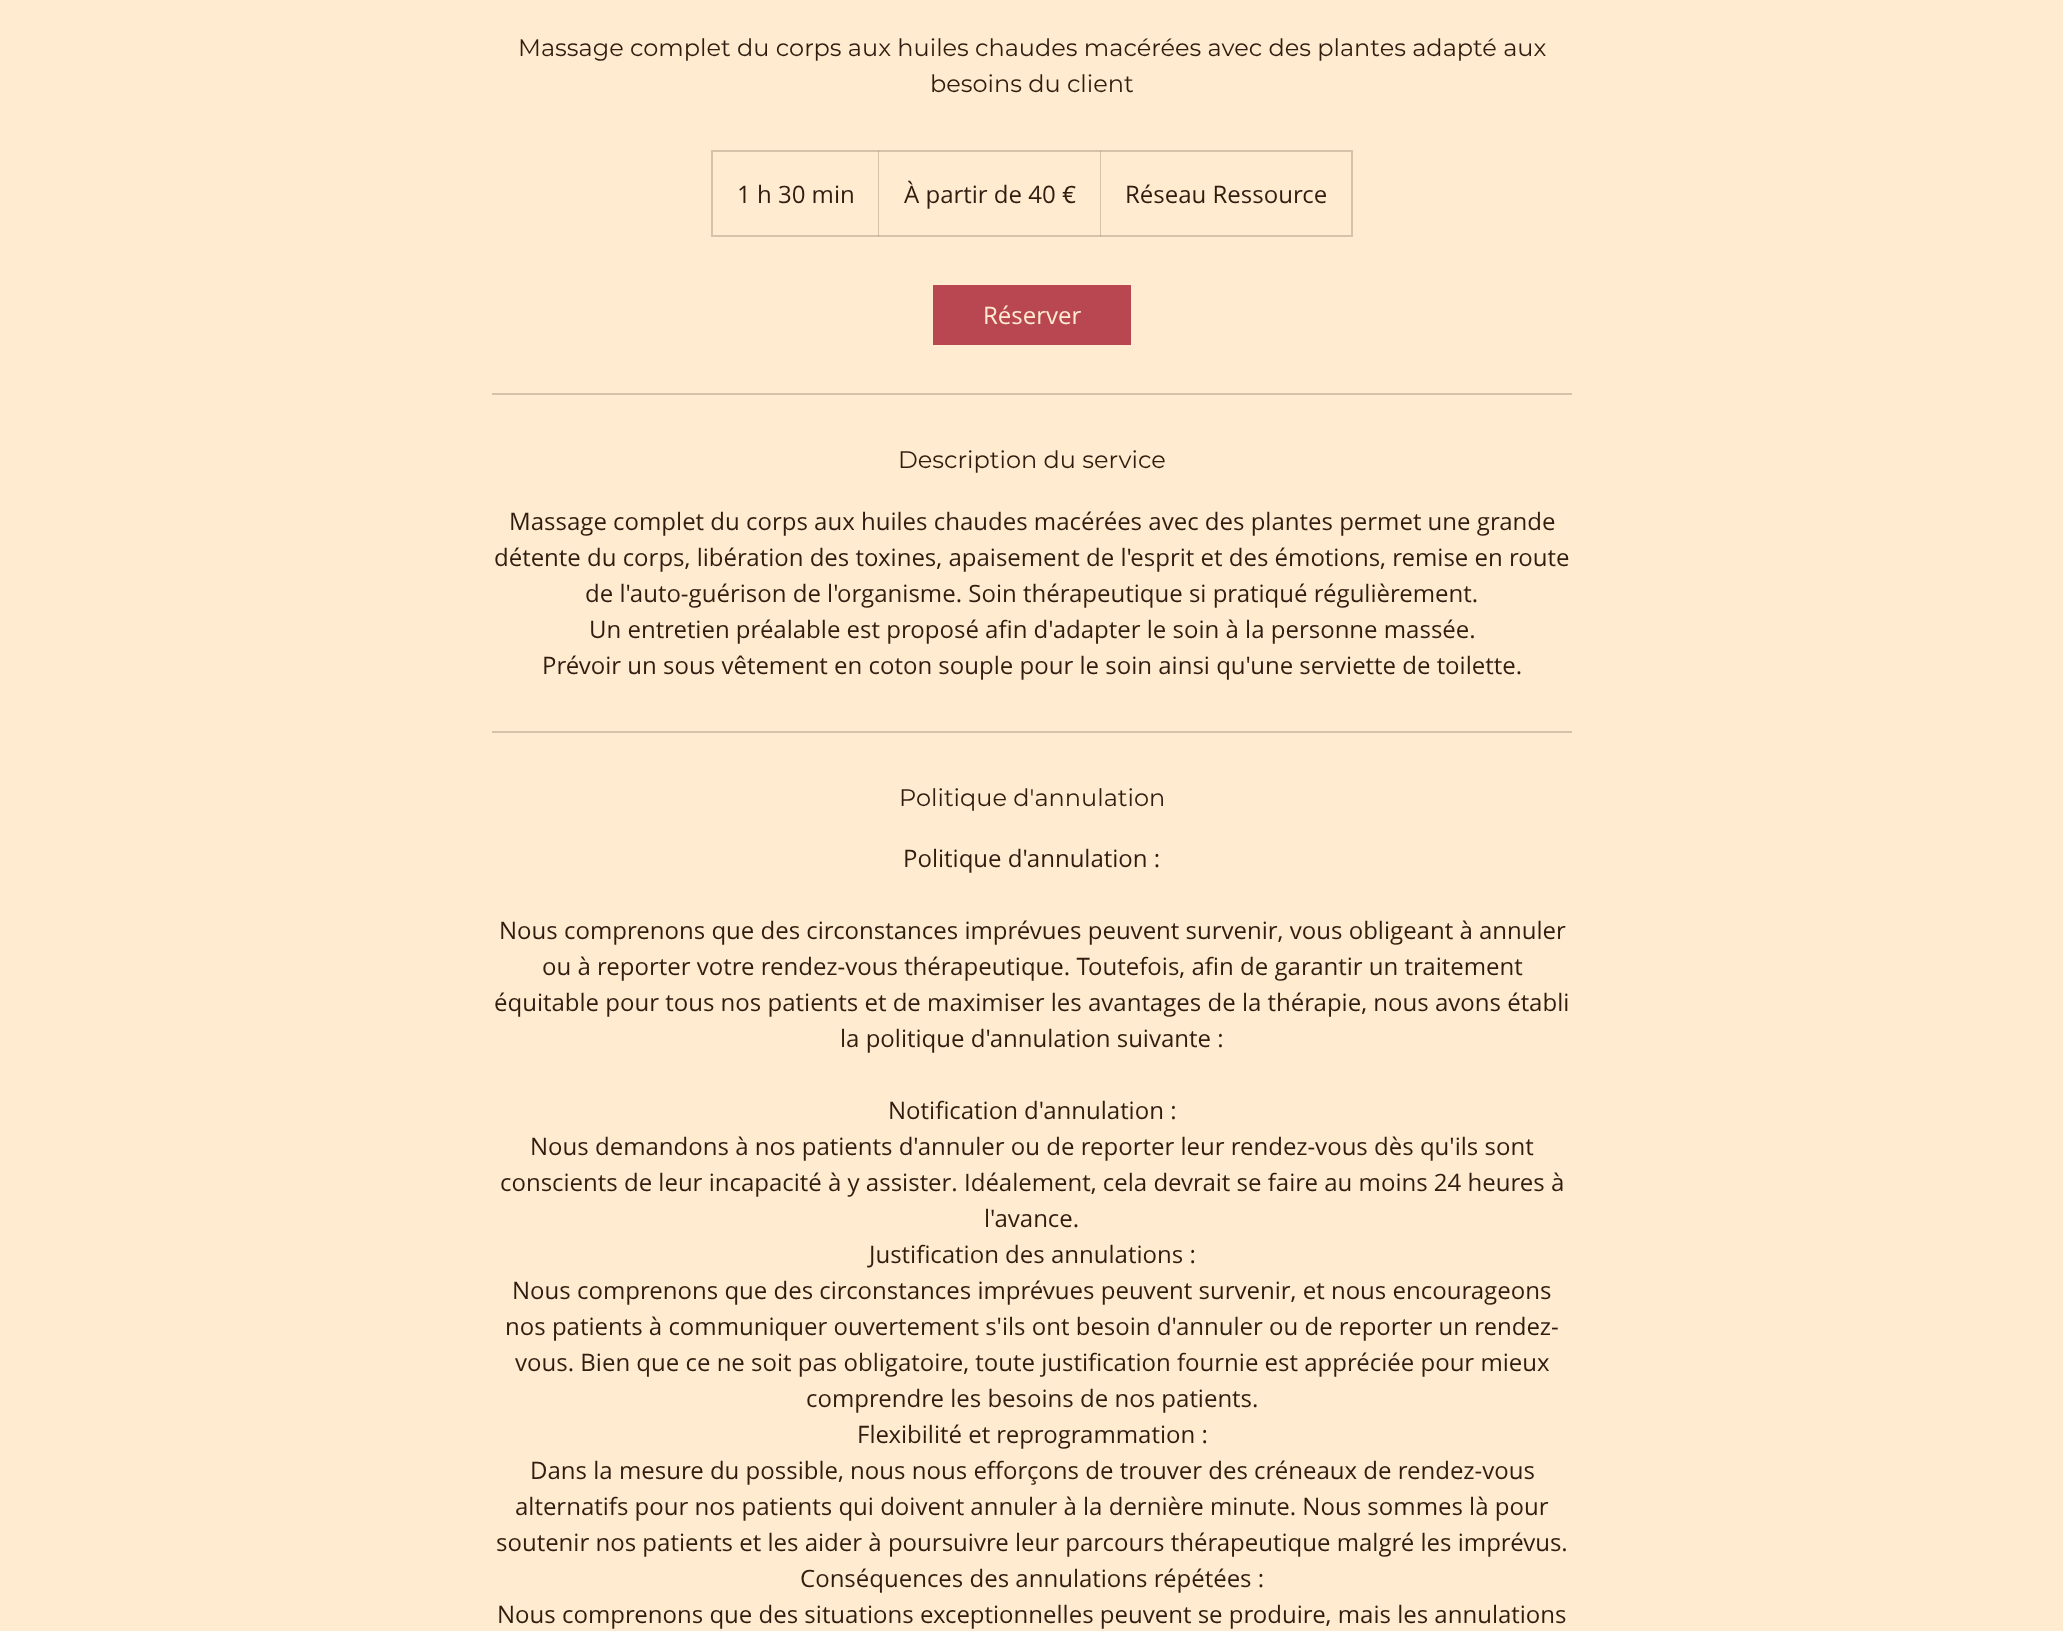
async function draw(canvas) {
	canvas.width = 2063;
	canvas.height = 1631;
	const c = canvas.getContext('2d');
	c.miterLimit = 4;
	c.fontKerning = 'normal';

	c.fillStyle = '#ffebcf';
	c.fillRect(0, 0, 2063, 1631);
	c.font = '24px Montserrat';
	c.fillStyle = '#301d10';
	c.fillText('Massage complet du corps aux huiles chaudes macérées avec des plantes adapté aux', 518, 56);
	c.fillText('besoins du client', 930, 92);
	c.strokeStyle = '#d6c2a9';
	c.lineWidth = 2;
	c.strokeRect(712, 151, 640, 85);
	c.font = '24px Open Sans';
	c.fillText('1 h 30 min', 737, 203);
	c.fillStyle = '#301d1033';
	c.beginPath();
	c.moveTo(878, 236);
	c.lineTo(878, 150);
	c.lineTo(879, 152);
	c.lineTo(879, 236);
	c.closePath();
	c.fill();
	c.fillStyle = '#301d10';
	c.fillText('À partir de 40 €', 904, 203);
	c.fillStyle = '#301d1033';
	c.beginPath();
	c.moveTo(1100, 236);
	c.lineTo(1100, 150);
	c.lineTo(1101, 152);
	c.lineTo(1101, 236);
	c.closePath();
	c.fill();
	c.fillStyle = '#301d10';
	c.fillText('Réseau Ressource', 1125, 203);
	c.fillStyle = '#b94752';
	c.fillRect(933, 285, 198, 60);
	c.fillStyle = '#ffebcf';
	c.fillText('Réserver', 983, 324);
	c.fillStyle = '#d6c2a9';
	c.fillRect(492, 393, 1080, 2);
	c.font = '24px Montserrat';
	c.fillStyle = '#301d10';
	c.fillText('Description du service', 898, 468);
	c.font = '24px Open Sans';
	for (const [text, x, y] of [
		['Massage complet du corps aux huiles chaudes macérées avec des plantes permet une grande', 509, 530],
		['détente du corps, libération des toxines, apaisement de l\'esprit et des émotions, remise en route', 494, 566],
		['de l\'auto-guérison de l\'organisme. Soin thérapeutique si pratiqué régulièrement.', 585, 602],
		['Un entretien préalable est proposé afin d\'adapter le soin à la personne massée.', 589, 638],
		['Prévoir un sous vêtement en coton souple pour le soin ainsi qu\'une serviette de toilette.', 542, 674],
	]) {
		c.fillText(text, x, y);
	}
	c.fillStyle = '#d6c2a9';
	c.fillRect(492, 731, 1080, 2);
	c.font = '24px Montserrat';
	c.fillStyle = '#301d10';
	c.fillText('Politique d\'annulation', 899, 806);
	c.font = '24px Open Sans';
	for (const [text, x, y] of [
		['Politique d\'annulation :', 903, 867],
		['Nous comprenons que des circonstances imprévues peuvent survenir, vous obligeant à annuler', 499, 939],
		['ou à reporter votre rendez-vous thérapeutique. Toutefois, afin de garantir un traitement', 542, 975],
		['équitable pour tous nos patients et de maximiser les avantages de la thérapie, nous avons établi', 494, 1011],
		['la politique d\'annulation suivante :', 840, 1047],
		['Notification d\'annulation :', 888, 1119],
		['Nous demandons à nos patients d\'annuler ou de reporter leur rendez-vous dès qu\'ils sont', 530, 1155],
		['conscients de leur incapacité à y assister. Idéalement, cela devrait se faire au moins 24 heures à', 500, 1191],
		['l\'avance.', 984, 1227],
		['Justification des annulations :', 869, 1263],
		['Nous comprenons que des circonstances imprévues peuvent survenir, et nous encourageons', 512, 1299],
		['nos patients à communiquer ouvertement s\'ils ont besoin d\'annuler ou de reporter un rendez-', 505, 1335],
		['vous. Bien que ce ne soit pas obligatoire, toute justification fournie est appréciée pour mieux', 515, 1371],
		['comprendre les besoins de nos patients.', 806, 1407],
		['Flexibilité et reprogrammation :', 857, 1443],
		['Dans la mesure du possible, nous nous efforçons de trouver des créneaux de rendez-vous', 530, 1479],
		['alternatifs pour nos patients qui doivent annuler à la dernière minute. Nous sommes là pour', 515, 1515],
		['soutenir nos patients et les aider à poursuivre leur parcours thérapeutique malgré les imprévus.', 496, 1551],
		['Conséquences des annulations répétées :', 800, 1587],
		['Nous comprenons que des situations exceptionnelles peuvent se produire, mais les annulations', 497, 1623],
	]) {
		c.fillText(text, x, y);
	}
}

draw(document.querySelector('canvas'));
